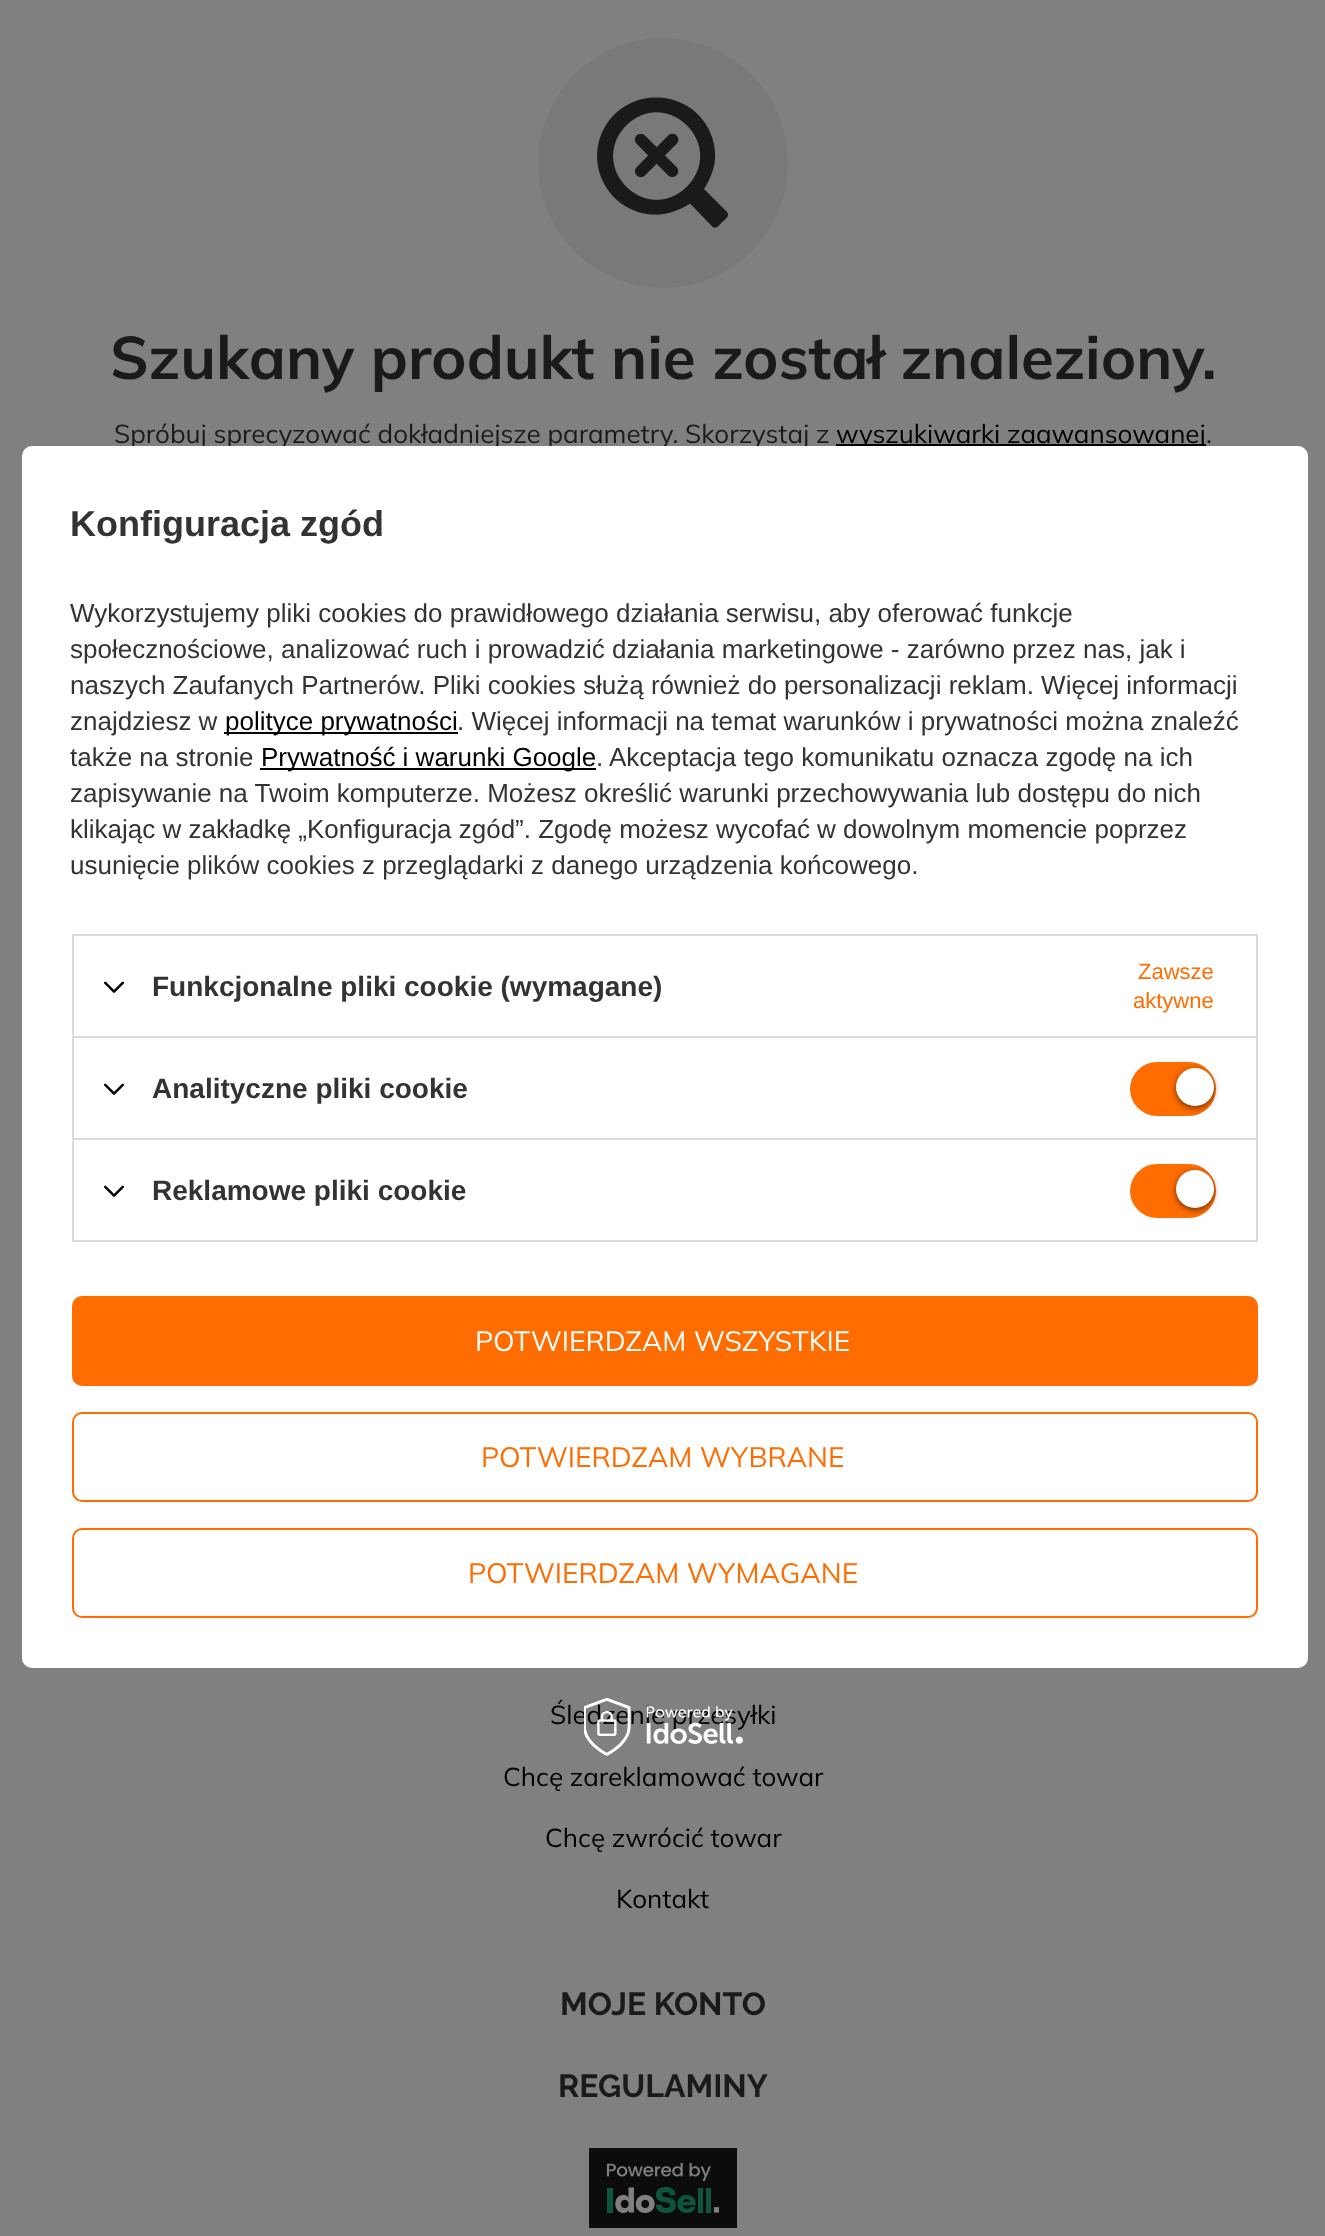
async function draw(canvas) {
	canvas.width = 1325;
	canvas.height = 2236;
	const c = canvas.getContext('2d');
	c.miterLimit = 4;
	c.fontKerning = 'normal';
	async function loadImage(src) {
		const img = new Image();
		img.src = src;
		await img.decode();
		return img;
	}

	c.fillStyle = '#808080';
	c.fillRect(0, 0, 1325, 2236);
	c.fillStyle = '#797979';
	c.beginPath();
	c.arc(663, 163, 125, 0, 2 * Math.PI);
	c.fill();
	c.drawImage(await loadImage('img1.png'), 597, 97, 131, 131);
	c.font = 'bold 60px Mulish';
	c.fillStyle = '#1a1a1a';
	c.fillText('Szukany produkt nie został znaleziony.', 110, 379);
	c.font = '26px Mulish';
	c.fillText('Spróbuj sprecyzować dokładniejsze parametry. Skorzystaj z', 114, 443);
	c.fillStyle = '#000';
	c.fillRect(836, 444, 370, 2);
	c.fillText('wyszukiwarki zaawansowanej', 836, 443);
	c.fillStyle = '#1a1a1a';
	c.fillText('.', 1206, 443);
	c.fillStyle = '#fff';
	c.beginPath();
	c.roundRect(22, 446, 1286, 1222, 10);
	c.fill();
	c.font = 'bold 36px Liberation Sans';
	c.fillStyle = '#333';
	c.fillText('Konfiguracja zgód', 70, 536);
	c.font = '26px Liberation Sans';
	for (const [text, x, y] of [
		['Wykorzystujemy pliki cookies do prawidłowego działania serwisu, aby oferować funkcje', 70, 622],
		['społecznościowe, analizować ruch i prowadzić działania marketingowe - zarówno przez nas, jak i', 70, 658],
		['naszych Zaufanych Partnerów. Pliki cookies służą również do personalizacji reklam. Więcej informacji', 70, 694],
		['znajdziesz w', 70, 730],
	]) {
		c.fillText(text, x, y);
	}
	c.fillStyle = '#000';
	c.fillRect(224, 732, 234, 2);
	c.fillText('polityce prywatności', 225, 730);
	c.fillStyle = '#333';
	c.fillText('. Więcej informacji na temat warunków i prywatności można znaleźć', 457, 730);
	c.fillText('także na stronie', 70, 766);
	c.fillStyle = '#000';
	c.fillRect(260, 768, 336, 2);
	c.fillText('Prywatność i warunki Google', 261, 766);
	c.fillStyle = '#333';
	for (const [text, x, y] of [
		['. Akceptacja tego komunikatu oznacza zgodę na ich', 596, 766],
		['zapisywanie na Twoim komputerze. Możesz określić warunki przechowywania lub dostępu do nich', 70, 802],
		['klikając w zakładkę „Konfiguracja zgód”. Zgodę możesz wycofać w dowolnym momencie poprzez', 70, 838],
		['usunięcie plików cookies z przeglądarki z danego urządzenia końcowego.', 70, 874],
	]) {
		c.fillText(text, x, y);
	}
	for (const [x, y, w, h, color] of [
		[72, 934, 1186, 2, '#dbdbdb'],
		[1256, 934, 2, 102, '#dbdbdb'],
		[72, 934, 2, 102, '#dbdbdb'],
	]) {
		c.fillStyle = color;
		c.fillRect(x, y, w, h);
	}
	c.drawImage(await loadImage('img2.png'), 104, 981, 20, 12);
	c.font = 'bold 28px Liberation Sans';
	c.fillStyle = '#333';
	c.fillText('Funkcjonalne pliki cookie (wymagane)', 152, 996);
	c.font = '22px Liberation Sans';
	c.fillStyle = '#ff6c00';
	c.fillText('Zawsze', 1138, 979);
	c.fillText('aktywne', 1133, 1008);
	for (const [x, y, w, h, color] of [
		[72, 1036, 1186, 2, '#dbdbdb'],
		[1256, 1036, 2, 102, '#dbdbdb'],
		[72, 1036, 2, 102, '#dbdbdb'],
	]) {
		c.fillStyle = color;
		c.fillRect(x, y, w, h);
	}
	c.drawImage(await loadImage('img2.png'), 104, 1083, 20, 12);
	c.font = 'bold 28px Liberation Sans';
	c.fillStyle = '#333';
	c.fillText('Analityczne pliki cookie', 152, 1098);
	c.fillStyle = '#ff6c00';
	c.beginPath();
	c.roundRect(1130, 1062, 86, 54, 27);
	c.fill();
	c.fillStyle = '#0000008f';
	c.filter = 'blur(3px)';
	c.beginPath();
	c.roundRect(1176, 1070, 38, 38, 19);
	c.fill();
	c.filter = 'none';
	c.fillStyle = '#fff';
	c.beginPath();
	c.arc(1195, 1087, 19, 0, 2 * Math.PI);
	c.fill();
	c.strokeStyle = '#dbdbdb';
	c.lineWidth = 2;
	c.strokeRect(73, 1139, 1184, 102);
	c.drawImage(await loadImage('img2.png'), 104, 1185, 20, 12);
	c.fillStyle = '#333';
	c.fillText('Reklamowe pliki cookie', 152, 1200);
	c.fillStyle = '#ff6c00';
	c.beginPath();
	c.roundRect(1130, 1164, 86, 54, 27);
	c.fill();
	c.fillStyle = '#0000008f';
	c.filter = 'blur(3px)';
	c.beginPath();
	c.roundRect(1176, 1172, 38, 38, 19);
	c.fill();
	c.filter = 'none';
	c.fillStyle = '#fff';
	c.beginPath();
	c.arc(1195, 1189, 19, 0, 2 * Math.PI);
	c.fill();
	c.fillStyle = '#ff6c00';
	c.beginPath();
	c.roundRect(73, 1297, 1184, 88, 9);
	c.fill();
	c.strokeStyle = '#ff6c00';
	c.stroke();
	c.font = '28px Mulish';
	c.fillStyle = '#fff';
	c.fillText('POTWIERDZAM WSZYSTKIE', 475, 1351);
	c.beginPath();
	c.roundRect(73, 1413, 1184, 88, 9);
	c.stroke();
	c.fillStyle = '#ff6c00';
	c.fillText('POTWIERDZAM WYBRANE', 481, 1467);
	c.beginPath();
	c.roundRect(73, 1529, 1184, 88, 9);
	c.stroke();
	c.fillText('POTWIERDZAM WYMAGANE', 468, 1583);
	c.font = '26px Mulish';
	c.fillStyle = '#000';
	c.fillText('Śledzenie przesyłki', 550, 1724);
	c.drawImage(await loadImage('img3.png'), 584, 1698, 159, 58);
	for (const [text, x, y] of [
		['Chcę zareklamować towar', 503, 1786],
		['Chcę zwrócić towar', 545, 1847],
		['Kontakt', 616, 1908],
	]) {
		c.fillText(text, x, y);
	}
	c.font = 'bold 32px Raleway';
	c.fillStyle = '#1a1a1a';
	c.fillText('MOJE KONTO', 560, 2015);
	c.fillText('REGULAMINY', 558, 2097);
	c.drawImage(await loadImage('img4.png'), 589, 2148, 148, 80);
}

draw(document.querySelector('canvas'));
